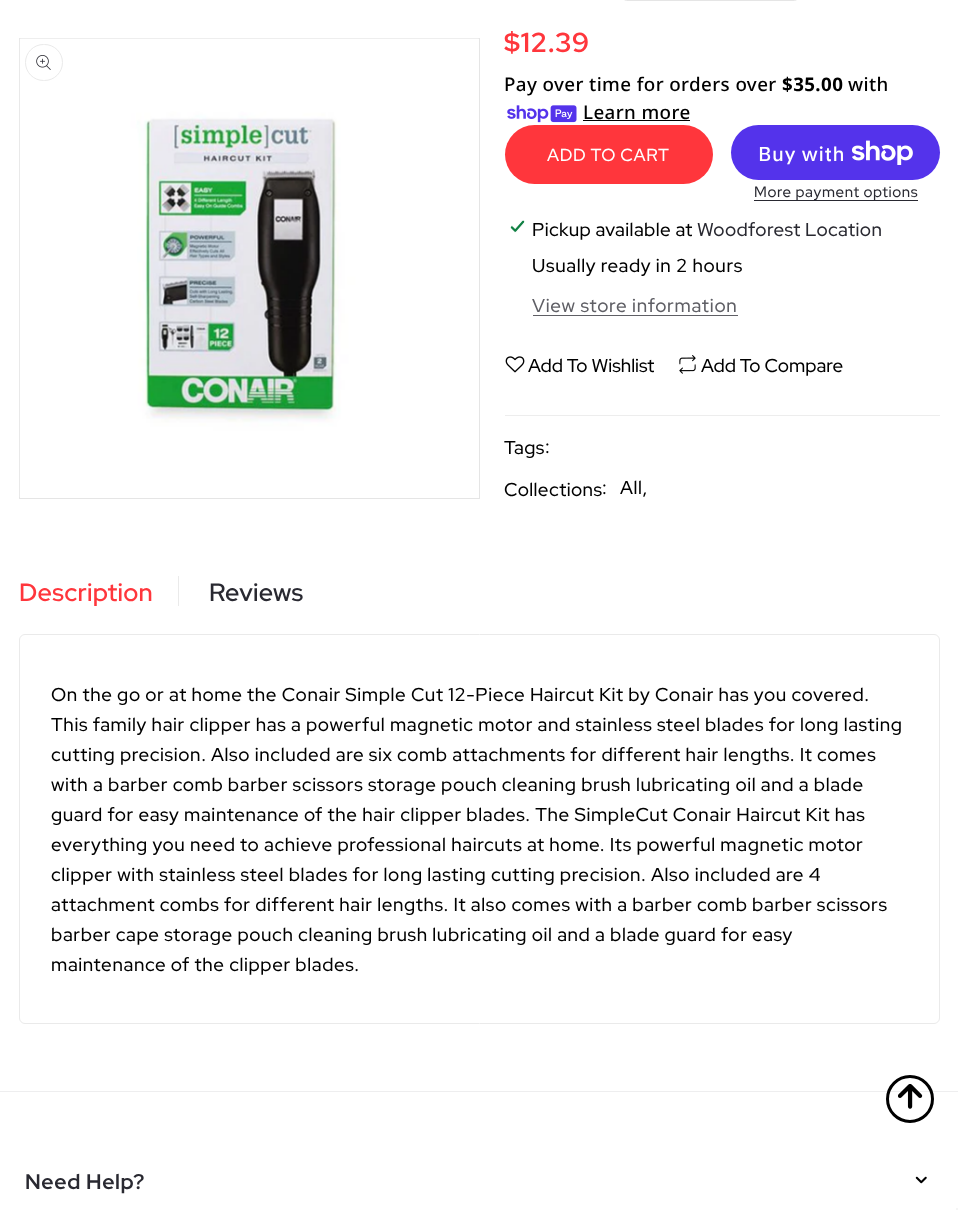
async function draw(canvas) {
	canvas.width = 958;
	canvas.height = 1210;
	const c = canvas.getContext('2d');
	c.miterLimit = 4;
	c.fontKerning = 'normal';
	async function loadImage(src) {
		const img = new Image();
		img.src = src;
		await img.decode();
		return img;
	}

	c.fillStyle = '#fff';
	c.fillRect(0, 0, 958, 1210);
	c.strokeStyle = '#e5e5e5';
	c.strokeRect(19.5, 38.5, 460, 460);
	c.drawImage(await loadImage('img1.png'), 19, 38, 460, 459);
	c.beginPath();
	c.roundRect(25.5, 44.5, 37, 36, 18);
	c.strokeStyle = '#eaeaea';
	c.stroke();
	c.drawImage(await loadImage('img2.png'), 36, 55, 15, 15);
	c.beginPath();
	c.roundRect(623.5, -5.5, 174, 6, 4.5);
	c.strokeStyle = '#e5e5e5';
	c.stroke();
	c.letterSpacing = '0.62px';
	c.font = 'bold 27.5px Red Hat Display';
	c.fillStyle = '#ff363c';
	c.fillText('$12.39', 504, 52);
	c.letterSpacing = '0.4px';
	c.font = '500 18.75px Noto Sans';
	c.fillStyle = '#000';
	c.fillText('Pay over time for orders over', 504, 91);
	c.font = 'bold 18.75px Noto Sans';
	c.fillText('$35.00', 782, 91);
	c.font = '500 18.75px Noto Sans';
	c.fillText('with', 848, 91);
	c.drawImage(await loadImage('img3.png'), 507, 105, 70, 18);
	c.fillText('Learn more', 583, 119);
	c.fillRect(583, 120, 107, 1);
	c.fillStyle = '#ff363c';
	c.beginPath();
	c.roundRect(505, 125, 208, 59, 29.5);
	c.fill();
	c.letterSpacing = '0.62px';
	c.font = '500 17.5px Red Hat Display';
	c.fillStyle = '#fff';
	c.fillText('ADD TO CART', 547, 161);
	c.fillStyle = '#5433eb';
	c.beginPath();
	c.roundRect(731, 125, 209, 55, 27.5);
	c.fill();
	c.font = '500 20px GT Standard';
	c.fillStyle = '#fff';
	c.fillText('Buy with', 758, 161);
	c.drawImage(await loadImage('img4.png'), 851, 140, 62, 25);
	c.fillStyle = '#292931';
	c.fillRect(754, 200, 164, 1);
	c.font = '500 15px Red Hat Display';
	c.fillText('More payment options', 754, 197);
	c.drawImage(await loadImage('img5.png'), 510, 220, 15, 13);
	c.letterSpacing = '0.4px';
	c.font = '500 18.75px Red Hat Display';
	c.fillStyle = '#000';
	c.fillText('Pickup available at', 532, 236);
	c.fillStyle = '#292931';
	c.fillText('Woodforest Location', 697, 236);
	c.letterSpacing = '0.62px';
	c.fillStyle = '#000';
	c.fillText('Usually ready in 2 hours', 532, 272);
	c.letterSpacing = '0.75px';
	c.fillStyle = '#5f5f65';
	c.fillText('View store information', 532, 312);
	c.fillRect(533, 315, 205, 1);
	c.drawImage(await loadImage('img6.png'), 505, 356, 20, 17);
	c.letterSpacing = '0px';
	c.fillStyle = '#000';
	c.fillText('Add To Wishlist', 528, 372);
	c.drawImage(await loadImage('img7.png'), 679, 355, 17, 19);
	c.fillText('Add To Compare', 701, 372);
	c.fillStyle = '#ededed';
	c.fillRect(505, 415, 435, 1);
	c.letterSpacing = '0.4px';
	c.fillStyle = '#000';
	c.fillText('Tags', 504, 454);
	c.letterSpacing = '0.62px';
	c.fillText(':', 545, 453);
	c.letterSpacing = '0.4px';
	c.fillText('Collections', 504, 496);
	c.letterSpacing = '0.62px';
	c.fillText(':', 602, 494);
	c.fillText('All,', 620, 494);
	c.fillStyle = '#eaeaea';
	c.fillRect(178, 576, 1, 30);
	c.letterSpacing = '0.25px';
	c.font = '600 25px Red Hat Display';
	c.fillStyle = '#ff363c';
	c.fillText('Description', 19, 601);
	c.fillStyle = '#292931';
	c.fillText('Reviews', 209, 601);
	c.beginPath();
	c.roundRect(19.5, 634.5, 920, 389, 5.5);
	c.strokeStyle = '#eaeaea';
	c.stroke();
	c.letterSpacing = '0.62px';
	c.font = '500 18.75px Red Hat Display';
	c.fillStyle = '#000';
	for (const [text, x, y] of [
		['On the go or at home the Conair Simple Cut 12-Piece Haircut Kit by Conair has you covered.', 51, 701],
		['This family hair clipper has a powerful magnetic motor and stainless steel blades for long lasting', 51, 731],
		['cutting precision. Also included are six comb attachments for different hair lengths. It comes', 51, 761],
		['with a barber comb barber scissors storage pouch cleaning brush lubricating oil and a blade', 51, 791],
		['guard for easy maintenance of the hair clipper blades. The SimpleCut Conair Haircut Kit has', 51, 821],
		['everything you need to achieve professional haircuts at home. Its powerful magnetic motor', 51, 851],
		['clipper with stainless steel blades for long lasting cutting precision. Also included are 4', 51, 881],
		['attachment combs for different hair lengths. It also comes with a barber comb barber scissors', 51, 911],
		['barber cape storage pouch cleaning brush lubricating oil and a blade guard for easy', 51, 941],
		['maintenance of the clipper blades.', 51, 971],
	]) {
		c.fillText(text, x, y);
	}
	c.fillStyle = '#eeeeef';
	c.fillRect(0, 1091, 958, 1);
	c.beginPath();
	c.arc(910, 1099, 22.5, 0, 2 * Math.PI);
	c.strokeStyle = '#000';
	c.lineWidth = 3;
	c.stroke();
	c.drawImage(await loadImage('img8.png'), 898, 1084, 25, 25);
	c.font = 'bold 21.25px Red Hat Display';
	c.fillStyle = '#292931';
	c.fillText('Need Help?', 25, 1189);
	c.drawImage(await loadImage('img9.png'), 915, 1176, 12, 8);
	c.fillStyle = '#f5f5f5';
	c.fillRect(956, 1208, 2, 2);
}

draw(document.querySelector('canvas'));
